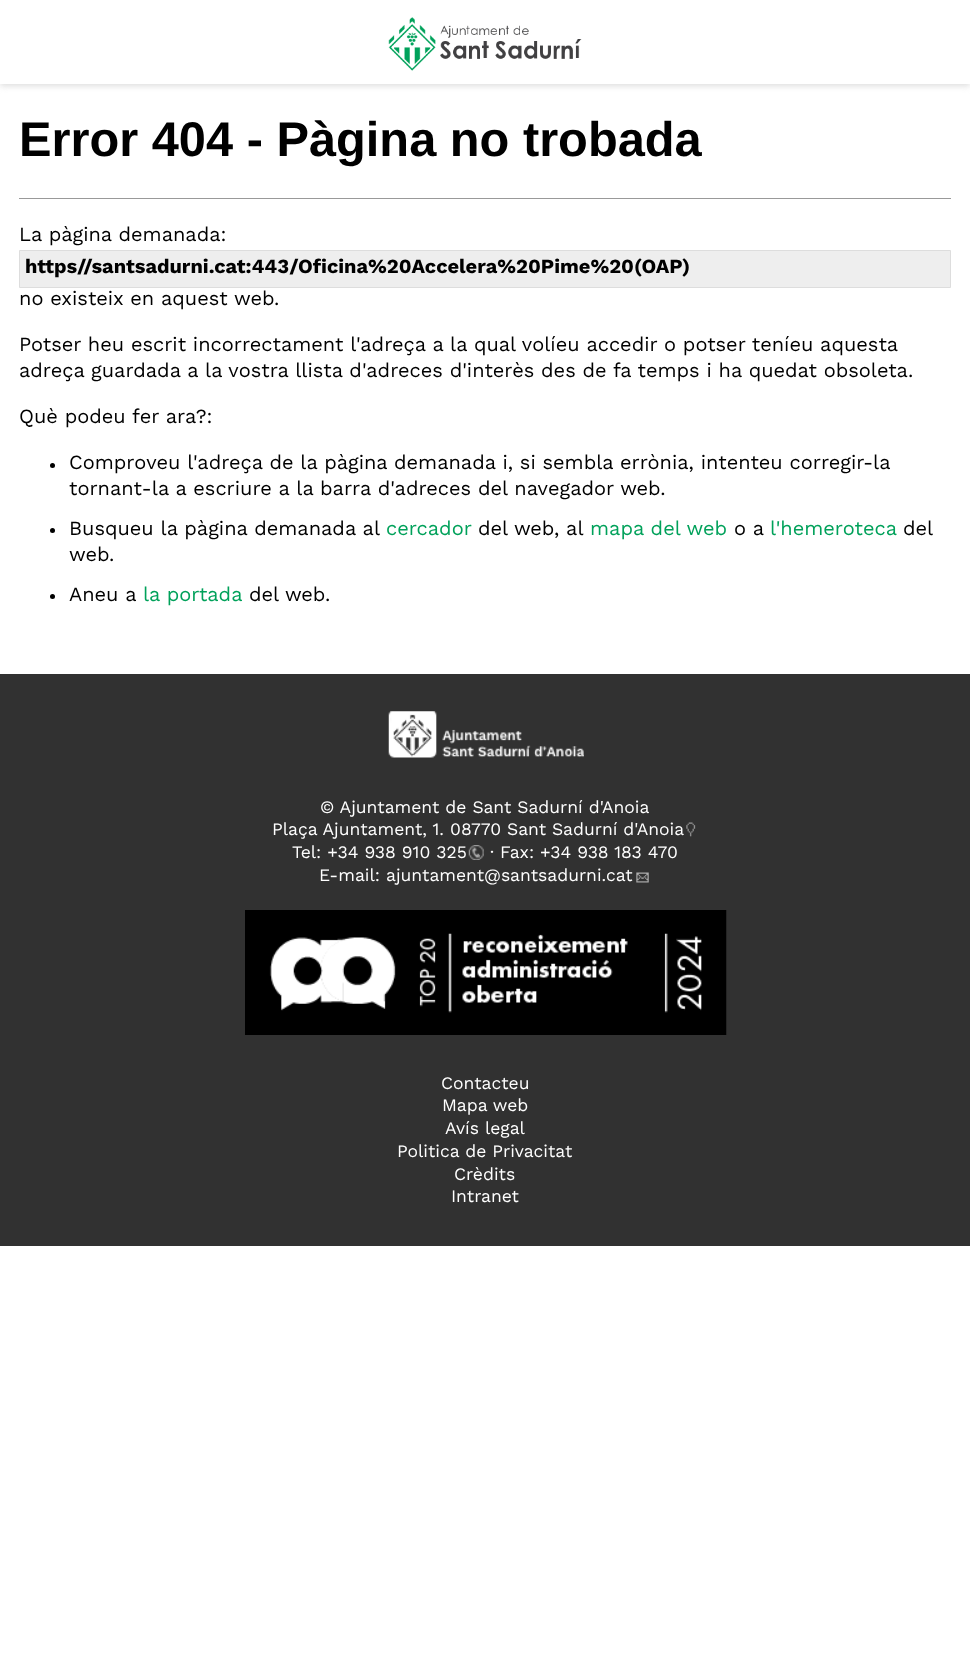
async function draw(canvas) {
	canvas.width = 970;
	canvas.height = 1674;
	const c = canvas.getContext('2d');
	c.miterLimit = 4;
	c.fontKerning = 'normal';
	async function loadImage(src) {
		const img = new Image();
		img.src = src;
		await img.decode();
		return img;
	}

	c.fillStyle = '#fff';
	c.fillRect(0, 0, 970, 1674);
	c.save();
	c.beginPath();
	c.moveTo(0, 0);
	c.lineTo(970, 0);
	c.lineTo(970, 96);
	c.lineTo(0, 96);
	c.closePath();
	c.moveTo(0, 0);
	c.lineTo(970, 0);
	c.lineTo(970, 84);
	c.lineTo(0, 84);
	c.closePath();
	c.clip('evenodd');
	c.fillStyle = '#ddd';
	c.filter = 'blur(3px)';
	c.beginPath();
	c.rect(0, 3, 970, 83);
	c.fill();
	c.filter = 'none';
	c.restore();
	c.drawImage(await loadImage('img1.png'), 388, 17, 194, 54);
	c.fillStyle = '#999';
	c.fillRect(19, 198, 932, 1);
	c.font = 'bold 48.75px Liberation Sans';
	c.fillStyle = '#000';
	c.fillText('Error 404 - Pàgina no trobada', 19, 156);
	c.font = '20px Work Sans';
	c.fillText('La pàgina demanada:', 19, 241);
	c.fillStyle = '#eee';
	c.beginPath();
	c.rect(19.5, 250.5, 931, 37);
	c.fill();
	c.strokeStyle = '#ddd';
	c.stroke();
	c.font = 'bold 20px Work Sans';
	c.fillStyle = '#000';
	c.fillText('https//santsadurni.cat:443/Oficina%20Accelera%20Pime%20(OAP)', 25, 273);
	c.font = '20px Work Sans';
	for (const [text, x, y] of [
		['no existeix en aquest web.', 19, 305],
		['Potser heu escrit incorrectament l\'adreça a la qual volíeu accedir o potser teníeu aquesta', 19, 351],
		['adreça guardada a la vostra llista d\'adreces d\'interès des de fa temps i ha quedat obsoleta.', 19, 377],
		['Què podeu fer ara?:', 19, 423],
	]) {
		c.fillText(text, x, y);
	}
	c.beginPath();
	c.arc(52.5, 465.5, 2.5, 0, 2 * Math.PI);
	c.fill();
	c.fillText('Comproveu l\'adreça de la pàgina demanada i, si sembla errònia, intenteu corregir-la', 69, 469);
	c.fillText('tornant-la a escriure a la barra d\'adreces del navegador web.', 69, 495);
	c.beginPath();
	c.arc(52.5, 530.5, 2.5, 0, 2 * Math.PI);
	c.fill();
	c.fillText('Busqueu la pàgina demanada al', 69, 535);
	c.fillStyle = '#00a15a';
	c.fillText('cercador', 386, 535);
	c.fillStyle = '#000';
	c.fillText('del web, al', 478, 535);
	c.fillStyle = '#00a15a';
	c.fillText('mapa del web', 590, 535);
	c.fillStyle = '#000';
	c.fillText('o a', 734, 535);
	c.fillStyle = '#00a15a';
	c.fillText('l\'hemeroteca', 770, 535);
	c.fillStyle = '#000';
	c.fillText('del', 903, 535);
	c.fillText('web.', 69, 561);
	c.beginPath();
	c.arc(52.5, 596.5, 2.5, 0, 2 * Math.PI);
	c.fill();
	c.fillText('Aneu a', 69, 601);
	c.fillStyle = '#00a15a';
	c.fillText('la portada', 143, 601);
	c.fillStyle = '#000';
	c.fillText('del web.', 249, 601);
	c.fillStyle = '#313131';
	c.fillRect(0, 674, 970, 572);
	c.drawImage(await loadImage('img2.png'), 388, 711, 196, 47);
	c.font = '17.5px Work Sans';
	c.fillStyle = '#fff';
	c.fillText('© Ajuntament de Sant Sadurní d\'Anoia', 320, 813);
	c.fillText('Plaça Ajuntament, 1. 08770 Sant Sadurní d\'Anoia', 272, 835);
	c.drawImage(await loadImage('img3.png'), 686, 822, 10, 15);
	c.fillText('Tel: +34 938 910 325', 292, 858);
	c.drawImage(await loadImage('img4.png'), 468, 845, 16, 15);
	c.fillText('· Fax: +34 938 183 470', 490, 858);
	c.fillText('E-mail: ajuntament@santsadurni.cat', 319, 881);
	c.drawImage(await loadImage('img5.png'), 636, 872, 13, 11);
	c.drawImage(await loadImage('img6.png'), 245, 910, 482, 125);
	for (const [text, x, y] of [
		['Contacteu', 441, 1089],
		['Mapa web', 442, 1111],
		['Avís legal', 445, 1134],
		['Politica de Privacitat', 397, 1157],
		['Crèdits', 454, 1180],
		['Intranet', 451, 1202],
	]) {
		c.fillText(text, x, y);
	}
}

draw(document.querySelector('canvas'));
